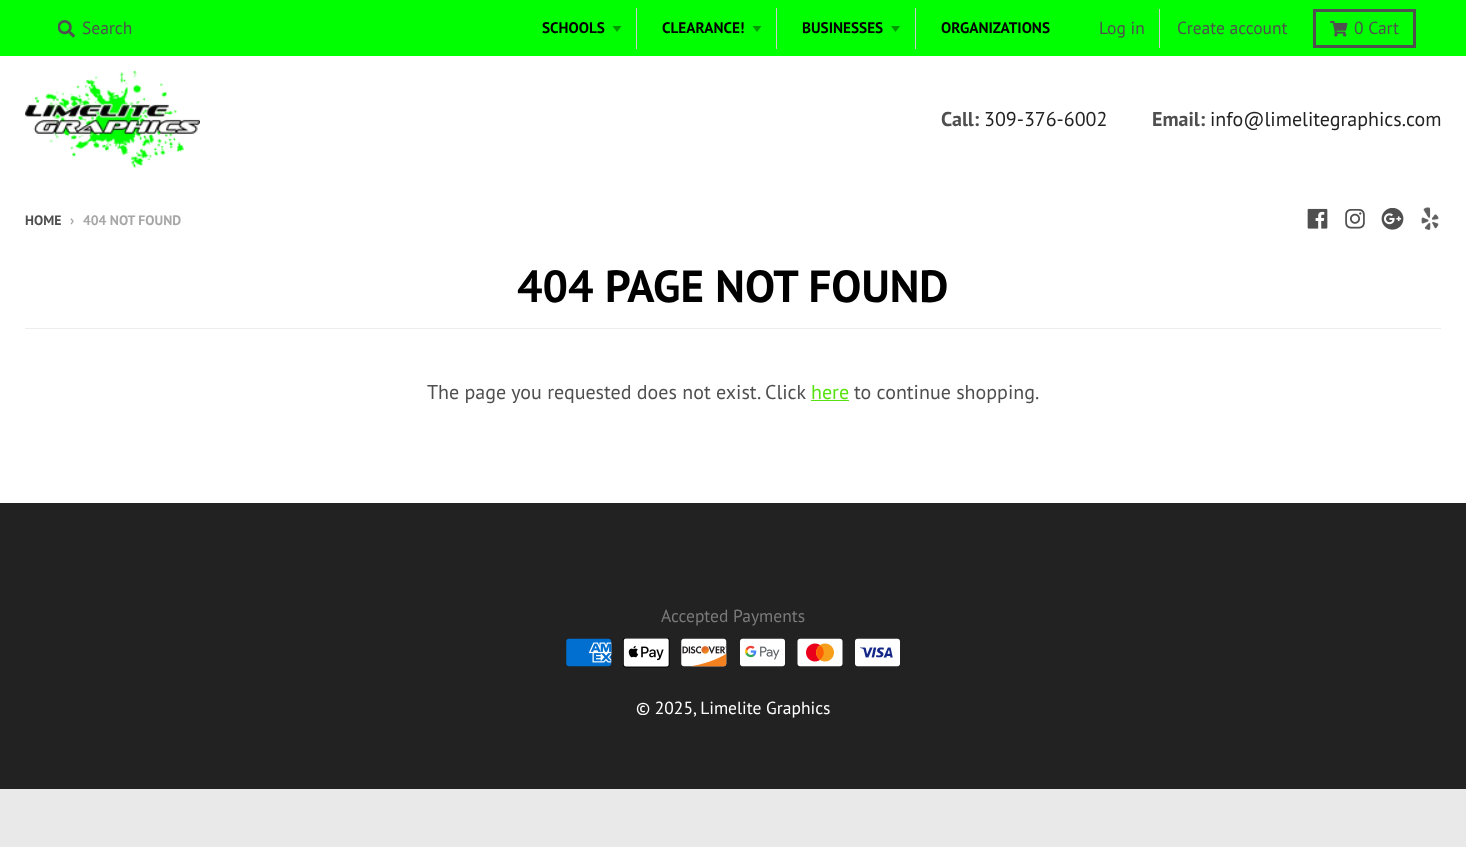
async function draw(canvas) {
	canvas.width = 1466;
	canvas.height = 847;
	const c = canvas.getContext('2d');
	c.miterLimit = 4;
	c.fontKerning = 'normal';
	async function loadImage(src) {
		const img = new Image();
		img.src = src;
		await img.decode();
		return img;
	}

	c.fillStyle = '#e9e9e9';
	c.fillRect(0, 0, 1466, 847);
	c.fillStyle = '#fff';
	c.fillRect(0, 56, 1466, 447);
	c.fillStyle = '#0f0';
	c.fillRect(0, 0, 1466, 56);
	c.drawImage(await loadImage('img1.png'), 58, 20, 17, 18);
	c.font = '17.5px PT Sans';
	c.fillStyle = '#4f4f4f';
	c.fillText('Search', 82, 34);
	c.fillStyle = '#cacaca';
	c.fillRect(636, 8, 1, 41);
	c.font = 'bold 15.25px PT Sans';
	c.fillStyle = '#000';
	c.fillText('SCHOOLS', 542, 33);
	c.fillStyle = '#090';
	c.beginPath();
	c.moveTo(612.5, 26);
	c.lineTo(617, 32);
	c.lineTo(621.5, 26);
	c.closePath();
	c.fill();
	c.fillStyle = '#cacaca';
	c.fillRect(776, 8, 1, 41);
	c.fillStyle = '#000';
	c.fillText('CLEARANCE!', 662, 33);
	c.fillStyle = '#090';
	c.beginPath();
	c.moveTo(752.5, 26);
	c.lineTo(757, 32);
	c.lineTo(761.5, 26);
	c.closePath();
	c.fill();
	c.fillStyle = '#cacaca';
	c.fillRect(915, 8, 1, 41);
	c.fillStyle = '#000';
	c.fillText('BUSINESSES', 802, 33);
	c.fillStyle = '#090';
	c.beginPath();
	c.moveTo(891, 26);
	c.lineTo(895.5, 32);
	c.lineTo(900, 26);
	c.closePath();
	c.fill();
	c.fillStyle = '#000';
	c.fillText('ORGANIZATIONS', 941, 33);
	c.fillStyle = '#cacaca';
	c.fillRect(1159, 9, 1, 39);
	c.font = '17.5px PT Sans';
	c.fillStyle = '#4f4f4f';
	c.fillText('Log in', 1099, 34);
	c.fillText('Create account', 1177, 34);
	c.strokeStyle = '#505050';
	c.lineWidth = 3;
	c.strokeRect(1314.5, 10.5, 100, 36);
	c.drawImage(await loadImage('img2.png'), 1330, 21, 18, 16);
	c.fillText('0 Cart', 1354, 34);
	c.drawImage(await loadImage('img3.png'), 25, 71, 175, 97);
	c.font = 'bold 20px PT Sans';
	c.fillText('Call:', 941, 126);
	c.font = '20px PT Sans';
	c.fillStyle = '#222';
	c.fillText('309-376-6002', 984, 126);
	c.font = 'bold 20px PT Sans';
	c.fillStyle = '#4f4f4f';
	c.fillText('Email:', 1152, 126);
	c.font = '20px PT Sans';
	c.fillStyle = '#222';
	c.fillText('info@limelitegraphics.com', 1210, 126);
	c.font = 'bold 13.75px PT Sans';
	c.fillStyle = '#4f4f4f';
	c.fillText('HOME', 25, 225);
	c.fillStyle = '#a7a7a7';
	c.fillText('›', 70, 225);
	c.fillText('404 NOT FOUND', 83, 225);
	c.drawImage(await loadImage('img4.png'), 1307, 208, 21, 21);
	c.drawImage(await loadImage('img5.png'), 1345, 209, 20, 20);
	c.drawImage(await loadImage('img6.png'), 1381, 208, 23, 22);
	c.drawImage(await loadImage('img7.png'), 1421, 207, 18, 23);
	c.fillStyle = '#ededed';
	c.fillRect(25, 328, 1416, 1);
	c.font = 'bold 45px PT Sans';
	c.fillStyle = '#000';
	c.fillText('404 PAGE NOT FOUND', 517, 302);
	c.font = '20px PT Sans';
	c.fillStyle = '#4f4f4f';
	c.fillText('The page you requested does not exist. Click', 427, 399);
	c.fillStyle = '#58e212';
	c.fillText('here', 811, 399);
	c.fillRect(811, 400, 38, 1);
	c.fillStyle = '#4f4f4f';
	c.fillText('to continue shopping.', 854, 399);
	c.fillStyle = '#222';
	c.fillRect(0, 503, 1466, 286);
	c.font = '17.5px PT Sans';
	c.fillStyle = '#7b7b7b';
	c.fillText('Accepted Payments', 661, 622);
	c.drawImage(await loadImage('img8.png'), 566, 638, 46, 29);
	c.drawImage(await loadImage('img9.png'), 623, 638, 47, 30);
	c.drawImage(await loadImage('img10.png'), 681, 638, 46, 29);
	c.drawImage(await loadImage('img11.png'), 740, 638, 45, 29);
	c.drawImage(await loadImage('img12.png'), 797, 638, 46, 29);
	c.drawImage(await loadImage('img13.png'), 855, 638, 45, 29);
	c.fillStyle = '#fff';
	c.fillText('© 2025, Limelite Graphics', 636, 714);
}

draw(document.querySelector('canvas'));
